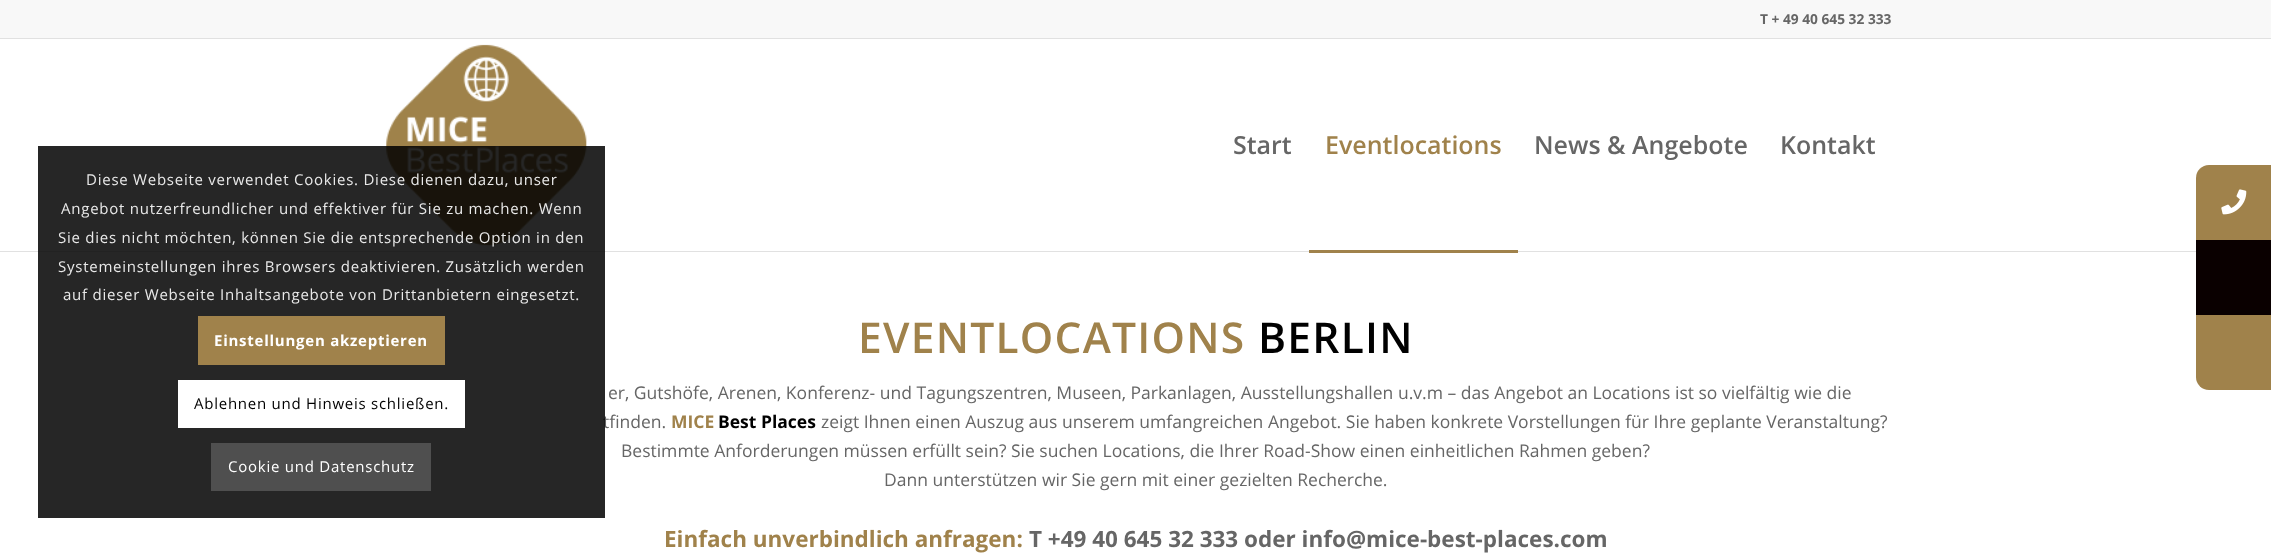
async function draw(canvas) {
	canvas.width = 2271;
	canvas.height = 554;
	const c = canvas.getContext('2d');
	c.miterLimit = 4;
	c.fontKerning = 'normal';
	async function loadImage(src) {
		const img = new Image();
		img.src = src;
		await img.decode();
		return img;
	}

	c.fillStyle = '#fff';
	c.fillRect(0, 0, 2271, 554);
	c.fillStyle = '#e1e1e1';
	c.fillRect(0, 251, 2196, 1);
	c.drawImage(await loadImage('img1.png'), 386, 44, 201, 202);
	c.font = '17.5px Open Sans';
	c.fillStyle = '#666';
	c.fillText('tfinden.', 603, 428);
	c.fillStyle = '#000000d9';
	c.fillRect(38, 146, 567, 372);
	c.letterSpacing = '0.75px';
	c.font = '15px Open Sans';
	c.fillStyle = '#e9e9e9';
	for (const [text, x, y] of [
		['Diese Webseite verwendet Cookies. Diese dienen dazu, unser', 86, 185],
		['Angebot nutzerfreundlicher und effektiver für Sie zu machen. Wenn', 61, 214],
		['Sie dies nicht möchten, können Sie die entsprechende Option in den', 58, 243],
		['Systemeinstellungen ihres Browsers deaktivieren. Zusätzlich werden', 58, 272],
		['auf dieser Webseite Inhaltsangebote von Drittanbietern eingesetzt.', 63, 300],
	]) {
		c.fillText(text, x, y);
	}
	c.fillStyle = '#a0824b';
	c.fillRect(198, 316, 247, 49);
	c.font = 'bold 15px Open Sans';
	c.fillStyle = '#fff';
	c.fillText('Einstellungen akzeptieren', 214, 346);
	c.fillRect(178, 380, 287, 48);
	c.font = '15px Open Sans';
	c.fillStyle = '#000';
	c.fillText('Ablehnen und Hinweis schließen.', 194, 409);
	c.fillStyle = '#4f4f4f';
	c.fillRect(211, 443, 220, 48);
	c.fillStyle = '#fff';
	c.fillText('Cookie und Datenschutz', 228, 472);
	c.fillStyle = '#f8f8f8';
	c.fillRect(0, 0, 2271, 38);
	c.fillStyle = '#e1e1e1';
	c.fillRect(0, 38, 2271, 1);
	c.letterSpacing = '0px';
	c.font = 'bold 13.75px Open Sans';
	c.fillStyle = '#666';
	c.fillText('T + 49 40 645 32 333', 1760, 24);
	c.font = '600 25px Open Sans';
	c.fillText('Start', 1233, 154);
	c.fillStyle = '#a0824b';
	c.fillText('Eventlocations', 1325, 154);
	c.fillRect(1309, 250, 209, 3);
	c.fillStyle = '#666';
	c.fillText('News & Angebote', 1534, 154);
	c.fillText('Kontakt', 1780, 154);
	c.letterSpacing = '1.25px';
	c.font = '600 42.5px Open Sans';
	c.fillStyle = '#a0824b';
	c.fillText('EVENTLOCATIONS', 858, 353);
	c.fillStyle = '#000';
	c.fillText('BERLIN', 1258, 353);
	c.letterSpacing = '0px';
	c.font = '17.5px Open Sans';
	c.fillStyle = '#666';
	c.fillText('er, Gutshöfe, Arenen, Konferenz- und Tagungszentren, Museen, Parkanlagen, Ausstellungshallen u.v.m – das Angebot an Locations ist so vielfältig wie die', 608, 399);
	c.font = 'bold 17.5px Open Sans';
	c.fillStyle = '#a0824b';
	c.fillText('MICE', 671, 428);
	c.fillStyle = '#000';
	c.fillText('Best Places', 718, 428);
	c.font = '17.5px Open Sans';
	c.fillStyle = '#666';
	for (const [text, x, y] of [
		['zeigt Ihnen einen Auszug aus unserem umfangreichen Angebot. Sie haben konkrete Vorstellungen für Ihre geplante Veranstaltung?', 821, 428],
		['Bestimmte Anforderungen müssen erfüllt sein? Sie suchen Locations, die Ihrer Road-Show einen einheitlichen Rahmen geben?', 621, 457],
		['Dann unterstützen wir Sie gern mit einer gezielten Recherche.', 884, 486],
	]) {
		c.fillText(text, x, y);
	}
	c.font = 'bold 22.5px Open Sans';
	c.fillStyle = '#a0824b';
	c.fillText('Einfach unverbindlich anfragen:', 664, 547);
	c.fillStyle = '#666';
	c.fillText('T +49 40 645 32 333 oder info@mice-best-places.com', 1029, 547);
	c.fillStyle = '#a0824b';
	c.beginPath();
	c.roundRect(2196, 165, 75, 75, [13, 0, 0, 0]);
	c.fill();
	c.drawImage(await loadImage('img2.png'), 2221, 189, 26, 26);
	c.fillStyle = '#0a0000';
	c.fillRect(2196, 240, 75, 75);
	c.fillStyle = '#a0824b';
	c.beginPath();
	c.roundRect(2196, 315, 75, 75, [0, 0, 0, 13]);
	c.fill();
}

draw(document.querySelector('canvas'));
